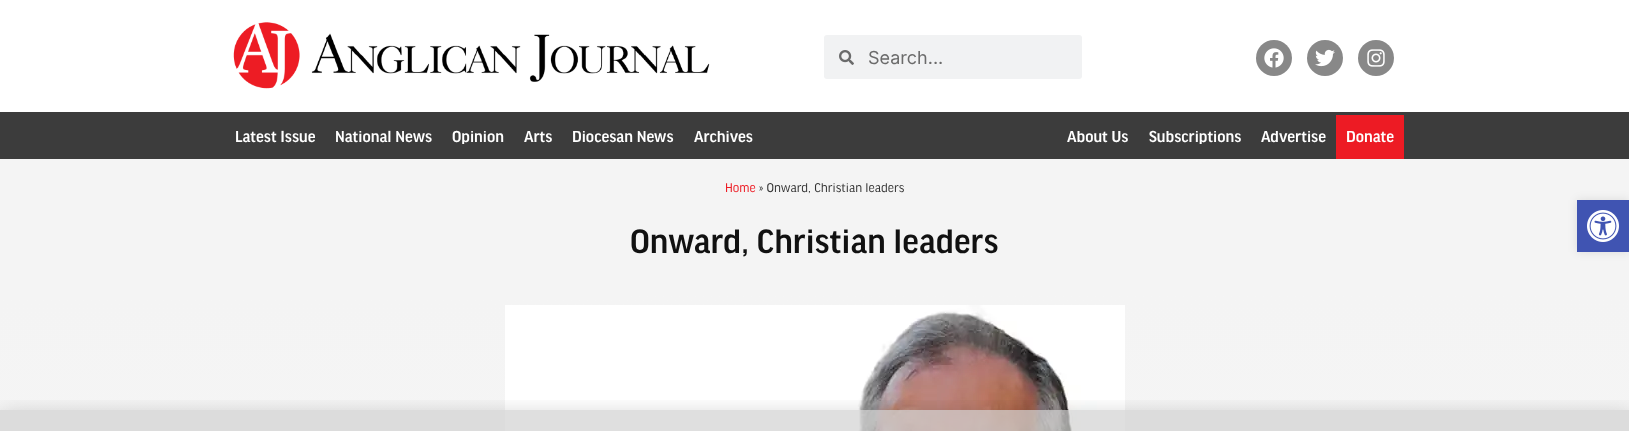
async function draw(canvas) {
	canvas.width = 1629;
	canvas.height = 431;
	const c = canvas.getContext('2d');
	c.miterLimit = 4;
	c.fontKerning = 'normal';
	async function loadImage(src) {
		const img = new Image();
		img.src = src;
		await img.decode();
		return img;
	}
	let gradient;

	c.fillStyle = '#fff';
	c.fillRect(0, 0, 1629, 431);
	c.drawImage(await loadImage('img1.png'), 233, 22, 477, 67);
	c.fillStyle = '#f1f2f3';
	c.beginPath();
	c.roundRect(824, 35, 258, 44, 3);
	c.fill();
	c.drawImage(await loadImage('img2.png'), 839, 50, 15, 15);
	c.font = '18px Inter';
	c.fillStyle = '#6b6b6b';
	c.fillText('Search...', 868, 64);
	c.fillStyle = '#888';
	c.beginPath();
	c.arc(1274, 58, 18, 0, 2 * Math.PI);
	c.fill();
	c.drawImage(await loadImage('img3.png'), 1264, 48, 20, 20);
	c.beginPath();
	c.arc(1325, 58, 18, 0, 2 * Math.PI);
	c.fill();
	c.drawImage(await loadImage('img4.png'), 1315, 49, 20, 18);
	c.beginPath();
	c.arc(1376, 58, 18, 0, 2 * Math.PI);
	c.fill();
	c.drawImage(await loadImage('img5.png'), 1367, 49, 18, 18);
	c.fillStyle = '#3c3c3c';
	c.fillRect(0, 112, 1629, 47);
	c.font = '500 17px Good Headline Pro';
	c.fillStyle = '#fff';
	for (const [text, x, y] of [
		['Latest Issue', 235, 142],
		['National News', 335, 142],
		['Opinion', 452, 142],
		['Arts', 524, 142],
		['Diocesan News', 572, 142],
		['Archives', 694, 142],
		['About Us', 1067, 142],
		['Subscriptions', 1149, 142],
		['Advertise', 1261, 142],
	]) {
		c.fillText(text, x, y);
	}
	c.fillStyle = '#ed1b24';
	c.fillRect(1336, 115, 68, 44);
	c.fillStyle = '#fff';
	c.fillText('Donate', 1346, 142);
	c.fillStyle = '#f4f4f4';
	c.fillRect(0, 159, 1629, 136);
	c.font = '13.6px Good Headline Pro';
	c.fillStyle = '#ed1b24';
	c.fillText('Home', 725, 192);
	c.fillStyle = '#333';
	c.fillText('» Onward, Christian leaders', 759, 192);
	c.font = '500 36px Good Headline Pro';
	c.fillStyle = '#111';
	c.fillText('Onward, Christian leaders', 630, 253);
	gradient = c.createLinearGradient(814, 295, 815, 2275);
	gradient.addColorStop(0, '#f4f4f4');
	gradient.addColorStop(1, '#fff');
	c.fillStyle = gradient;
	c.fillRect(0, 295, 1629, 136);
	c.drawImage(await loadImage('img6.png'), 505, 305, 620, 126);
	c.fillStyle = '#0000001a';
	c.filter = 'blur(5px)';
	c.beginPath();
	c.rect(1577, 200, 52, 52);
	c.fill();
	c.filter = 'none';
	c.fillStyle = '#4054b2';
	c.fillRect(1577, 200, 52, 52);
	c.drawImage(await loadImage('img7.png'), 1587, 210, 32, 32);
	c.save();
	c.beginPath();
	c.rect(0, 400, 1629, 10);
	c.clip();
	c.fillStyle = '#00000033';
	c.filter = 'blur(11.5px)';
	c.beginPath();
	c.rect(-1, 415, 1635, 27);
	c.fill();
	c.filter = 'none';
	c.restore();
	c.fillStyle = '#d1d1d1b3';
	c.fillRect(0, 410, 1629, 21);
}

draw(document.querySelector('canvas'));
